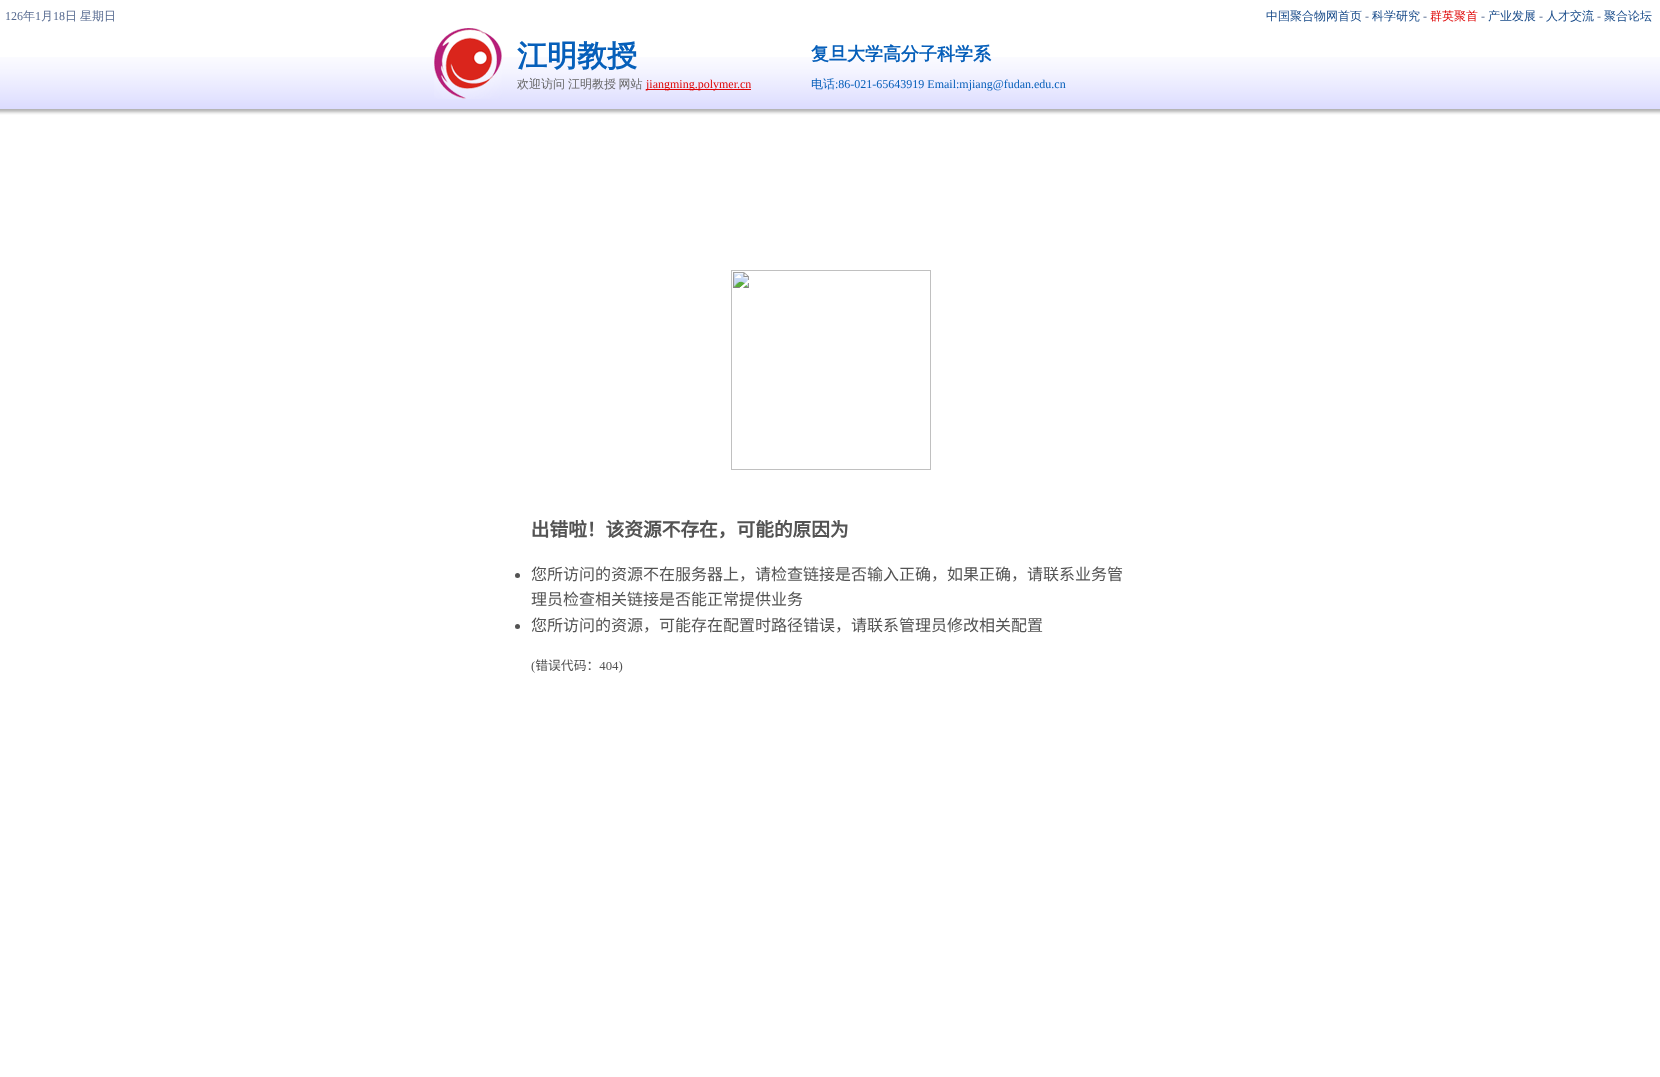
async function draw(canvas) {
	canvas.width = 1660;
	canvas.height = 1077;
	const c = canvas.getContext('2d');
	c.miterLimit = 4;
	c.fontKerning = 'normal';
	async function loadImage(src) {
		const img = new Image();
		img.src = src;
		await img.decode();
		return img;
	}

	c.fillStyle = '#fff';
	c.fillRect(0, 0, 1660, 1077);
	c.drawImage(await loadImage('img1.png'), 0, 57, 1660, 58);
	c.font = '12px Liberation Serif';
	c.fillStyle = '#566a90';
	c.fillText('126', 5, 20);
	c.font = '500 12px WenQuanYi Zen Hei';
	c.fillText('年', 23, 20);
	c.font = '12px Liberation Serif';
	c.fillText('1', 35, 20);
	c.font = '500 12px WenQuanYi Zen Hei';
	c.fillText('月', 41, 20);
	c.font = '12px Liberation Serif';
	c.fillText('18', 53, 20);
	c.font = '500 12px WenQuanYi Zen Hei';
	c.fillText('日', 65, 20);
	c.fillText('星期日', 80, 20);
	c.fillStyle = '#164988';
	c.fillText('中国聚合物网首页', 1266, 20);
	c.font = '12px Liberation Serif';
	c.fillStyle = '#566a90';
	c.fillText('-', 1365, 20);
	c.font = '500 12px WenQuanYi Zen Hei';
	c.fillStyle = '#164988';
	c.fillText('科学研究', 1372, 20);
	c.font = '12px Liberation Serif';
	c.fillStyle = '#566a90';
	c.fillText('-', 1423, 20);
	c.font = '500 12px WenQuanYi Zen Hei';
	c.fillStyle = '#df0606';
	c.fillText('群英聚首', 1430, 20);
	c.font = '12px Liberation Serif';
	c.fillStyle = '#566a90';
	c.fillText('-', 1481, 20);
	c.font = '500 12px WenQuanYi Zen Hei';
	c.fillStyle = '#164988';
	c.fillText('产业发展', 1488, 20);
	c.font = '12px Liberation Serif';
	c.fillStyle = '#566a90';
	c.fillText('-', 1539, 20);
	c.font = '500 12px WenQuanYi Zen Hei';
	c.fillStyle = '#164988';
	c.fillText('人才交流', 1546, 20);
	c.font = '12px Liberation Serif';
	c.fillStyle = '#566a90';
	c.fillText('-', 1597, 20);
	c.font = '500 12px WenQuanYi Zen Hei';
	c.fillStyle = '#164988';
	c.fillText('聚合论坛', 1604, 20);
	c.drawImage(await loadImage('img2.png'), 434, 28, 68, 71);
	c.font = 'bold 30px WenQuanYi Zen Hei';
	c.fillStyle = '#065fba';
	c.fillText('江明教授', 517, 66);
	c.font = '500 12px WenQuanYi Zen Hei';
	c.fillStyle = '#666';
	c.fillText('欢迎访问', 517, 88);
	c.wordSpacing = '-1px';
	c.fillText('江明教授 网站', 568, 88);
	c.fillStyle = '#df0606';
	c.fillRect(646, 89, 105, 1);
	c.wordSpacing = '0px';
	c.font = '12px Liberation Serif';
	c.fillText('jiangming.polymer.cn', 646, 88);
	c.font = 'bold 18px WenQuanYi Zen Hei';
	c.fillStyle = '#065fba';
	c.fillText('复旦大学高分子科学系', 811, 60);
	c.font = '500 12px WenQuanYi Zen Hei';
	c.fillText('电话', 811, 88);
	c.font = '12px Liberation Serif';
	c.fillText(':86-021-65643919 Email:mjiang@fudan.edu.cn', 835, 88);
	c.drawImage(await loadImage('img3.png'), 515, 270, 608, 403);
}

draw(document.querySelector('canvas'));
